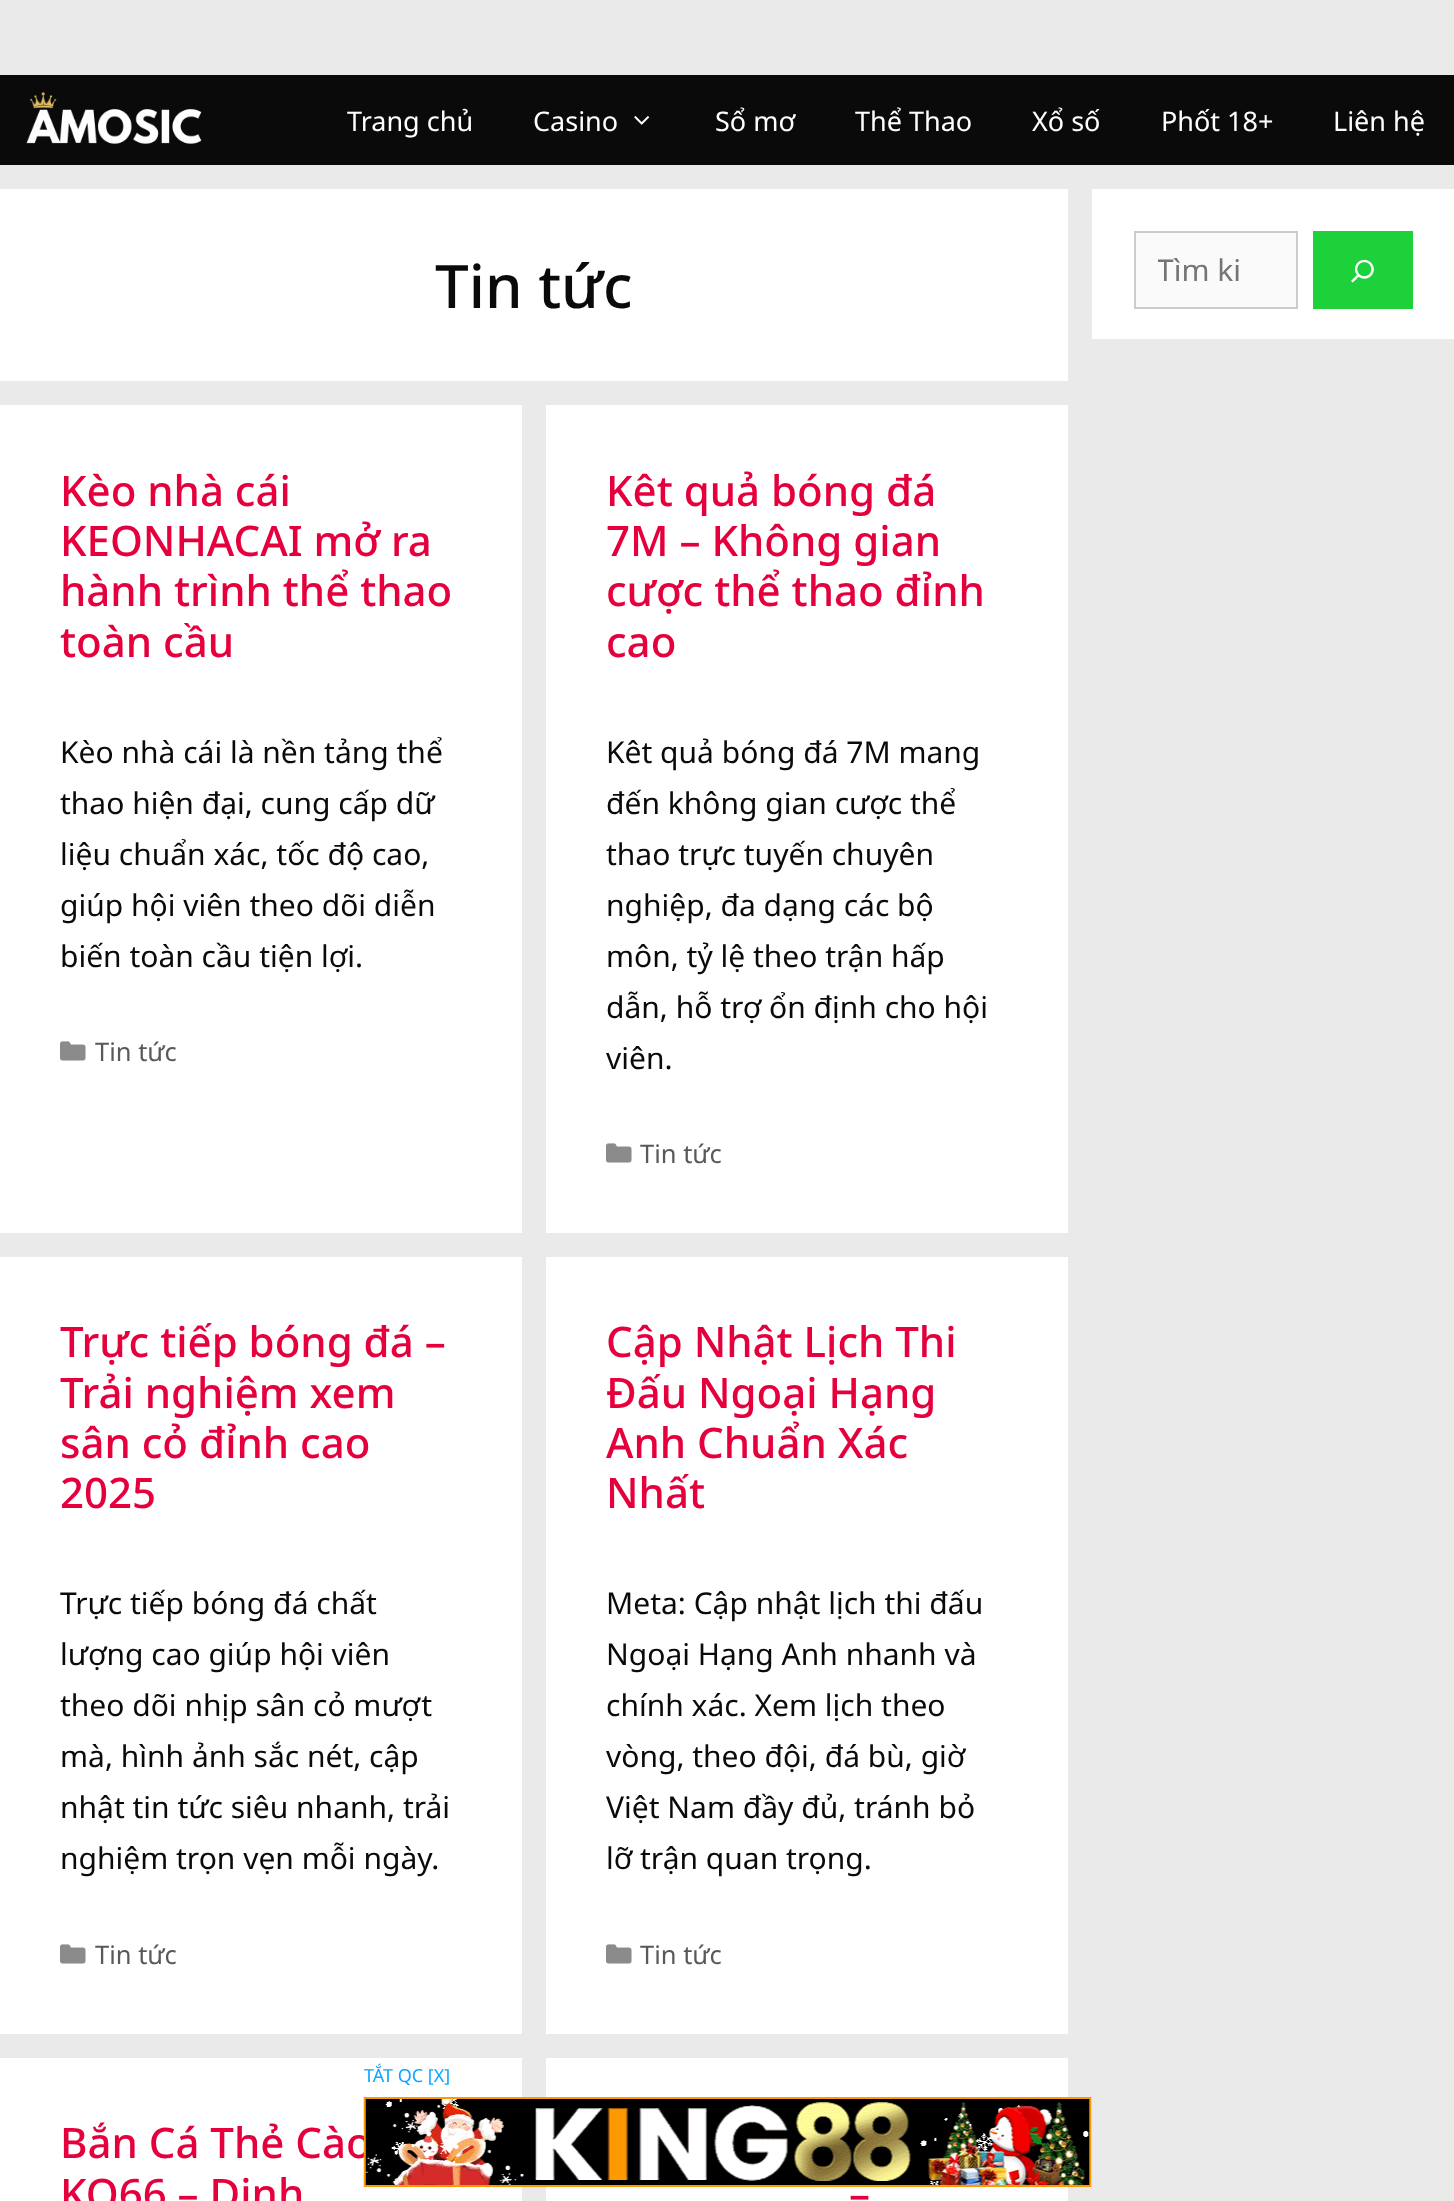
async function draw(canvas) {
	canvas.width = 1454;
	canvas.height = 2201;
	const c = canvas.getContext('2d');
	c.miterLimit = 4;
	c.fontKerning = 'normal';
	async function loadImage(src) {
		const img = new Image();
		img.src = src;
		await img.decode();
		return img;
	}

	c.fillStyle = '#eaeaea';
	c.fillRect(0, 0, 1454, 2201);
	c.fillStyle = '#0a0a0a';
	c.fillRect(0, 75, 1454, 90);
	c.drawImage(await loadImage('img1.png'), 26, 91, 176, 53);
	c.font = '27px Noto Sans';
	c.fillStyle = '#fff';
	c.fillText('Trang chủ', 347, 131);
	c.fillText('Casino', 533, 131);
	c.drawImage(await loadImage('img2.png'), 634, 116, 16, 9);
	for (const [text, x, y] of [
		['Sổ mơ', 715, 131],
		['Thể Thao', 855, 131],
		['Xổ số', 1032, 131],
		['Phốt 18+', 1161, 131],
		['Liên hệ', 1333, 131],
	]) {
		c.fillText(text, x, y);
	}
	c.fillRect(0, 189, 1068, 192);
	c.font = '500 60px Noto Sans';
	c.fillStyle = '#0a0a0a';
	c.fillText('Tin tức', 435, 308);
	c.fillStyle = '#fff';
	c.fillRect(0, 405, 522, 828);
	c.font = '500 42px Noto Sans';
	c.fillStyle = '#e5003d';
	for (const [text, x, y] of [
		['Kèo nhà cái', 60, 506],
		['KEONHACAI mở ra', 60, 556],
		['hành trình thể thao', 60, 606],
		['toàn cầu', 60, 657],
	]) {
		c.fillText(text, x, y);
	}
	c.font = '30px Noto Sans';
	c.fillStyle = '#0a0a0a';
	for (const [text, x, y] of [
		['Kèo nhà cái là nền tảng thể', 60, 763],
		['thao hiện đại, cung cấp dữ', 60, 814],
		['liệu chuẩn xác, tốc độ cao,', 60, 865],
		['giúp hội viên theo dõi diễn', 60, 916],
		['biến toàn cầu tiện lợi.', 60, 967],
	]) {
		c.fillText(text, x, y);
	}
	c.drawImage(await loadImage('img3.png'), 60, 1041, 26, 20);
	c.font = '25.5px Noto Sans';
	c.fillStyle = '#595959';
	c.fillText('Tin tức', 95, 1061);
	c.fillStyle = '#fff';
	c.fillRect(546, 405, 522, 828);
	c.font = '500 42px Noto Sans';
	c.fillStyle = '#e5003d';
	for (const [text, x, y] of [
		['Kêt quả bóng đá', 606, 506],
		['7M – Không gian', 606, 556],
		['cược thể thao đỉnh', 606, 606],
		['cao', 606, 657],
	]) {
		c.fillText(text, x, y);
	}
	c.font = '30px Noto Sans';
	c.fillStyle = '#0a0a0a';
	for (const [text, x, y] of [
		['Kêt quả bóng đá 7M mang', 606, 763],
		['đến không gian cược thể', 606, 814],
		['thao trực tuyến chuyên', 606, 865],
		['nghiệp, đa dạng các bộ', 606, 916],
		['môn, tỷ lệ theo trận hấp', 606, 967],
		['dẫn, hỗ trợ ổn định cho hội', 606, 1018],
		['viên.', 606, 1069],
	]) {
		c.fillText(text, x, y);
	}
	c.drawImage(await loadImage('img3.png'), 606, 1143, 26, 20);
	c.font = '25.5px Noto Sans';
	c.fillStyle = '#595959';
	c.fillText('Tin tức', 640, 1163);
	c.fillStyle = '#fff';
	c.fillRect(0, 1257, 522, 777);
	c.font = '500 42px Noto Sans';
	c.fillStyle = '#e5003d';
	for (const [text, x, y] of [
		['Trực tiếp bóng đá –', 60, 1357],
		['Trải nghiệm xem', 60, 1408],
		['sân cỏ đỉnh cao', 60, 1458],
		['2025', 60, 1508],
	]) {
		c.fillText(text, x, y);
	}
	c.font = '30px Noto Sans';
	c.fillStyle = '#0a0a0a';
	for (const [text, x, y] of [
		['Trực tiếp bóng đá chất', 60, 1614],
		['lượng cao giúp hội viên', 60, 1665],
		['theo dõi nhịp sân cỏ mượt', 60, 1716],
		['mà, hình ảnh sắc nét, cập', 60, 1767],
		['nhật tin tức siêu nhanh, trải', 60, 1818],
		['nghiệm trọn vẹn mỗi ngày.', 60, 1869],
	]) {
		c.fillText(text, x, y);
	}
	c.drawImage(await loadImage('img3.png'), 60, 1944, 26, 20);
	c.font = '25.5px Noto Sans';
	c.fillStyle = '#595959';
	c.fillText('Tin tức', 95, 1964);
	c.fillStyle = '#fff';
	c.fillRect(546, 1257, 522, 777);
	c.font = '500 42px Noto Sans';
	c.fillStyle = '#e5003d';
	for (const [text, x, y] of [
		['Cập Nhật Lịch Thi', 606, 1357],
		['Đấu Ngoại Hạng', 606, 1408],
		['Anh Chuẩn Xác', 606, 1458],
		['Nhất', 606, 1508],
	]) {
		c.fillText(text, x, y);
	}
	c.font = '30px Noto Sans';
	c.fillStyle = '#0a0a0a';
	for (const [text, x, y] of [
		['Meta: Cập nhật lịch thi đấu', 606, 1614],
		['Ngoại Hạng Anh nhanh và', 606, 1665],
		['chính xác. Xem lịch theo', 606, 1716],
		['vòng, theo đội, đá bù, giờ', 606, 1767],
		['Việt Nam đầy đủ, tránh bỏ', 606, 1818],
		['lỡ trận quan trọng.', 606, 1869],
	]) {
		c.fillText(text, x, y);
	}
	c.drawImage(await loadImage('img3.png'), 606, 1944, 26, 20);
	c.font = '25.5px Noto Sans';
	c.fillStyle = '#595959';
	c.fillText('Tin tức', 640, 1964);
	c.fillStyle = '#fff';
	c.fillRect(0, 2058, 522, 143);
	c.font = '500 42px Noto Sans';
	c.fillStyle = '#e5003d';
	c.fillText('Bắn Cá Thẻ Cào', 60, 2158);
	c.fillText('KO66 – Dinh', 60, 2209);
	c.fillStyle = '#fff';
	c.fillRect(546, 2058, 522, 143);
	c.fillStyle = '#e5003d';
	c.fillText('–', 849, 2209);
	c.fillStyle = '#fff';
	c.fillRect(1092, 189, 362, 150);
	c.fillStyle = '#fafafa';
	c.beginPath();
	c.rect(1135, 232, 162, 76);
	c.fill();
	c.strokeStyle = '#ccc';
	c.lineWidth = 2;
	c.stroke();
	c.save();
	c.beginPath();
	c.rect(1158, 249, 89, 41);
	c.clip();
	c.font = '30px Noto Sans';
	c.fillStyle = '#757575';
	c.fillText('Tìm ki', 1157, 281);
	c.restore();
	c.fillStyle = '#1dd13b';
	c.fillRect(1313, 231, 100, 78);
	c.drawImage(await loadImage('img4.png'), 1351, 259, 23, 24);
	c.font = '18px Noto Sans';
	c.fillStyle = '#0ba5ff';
	c.fillText('TẮT QC [X]', 364, 2082);
	c.drawImage(await loadImage('img5.png'), 363, 2097, 729, 90);
}

draw(document.querySelector('canvas'));
